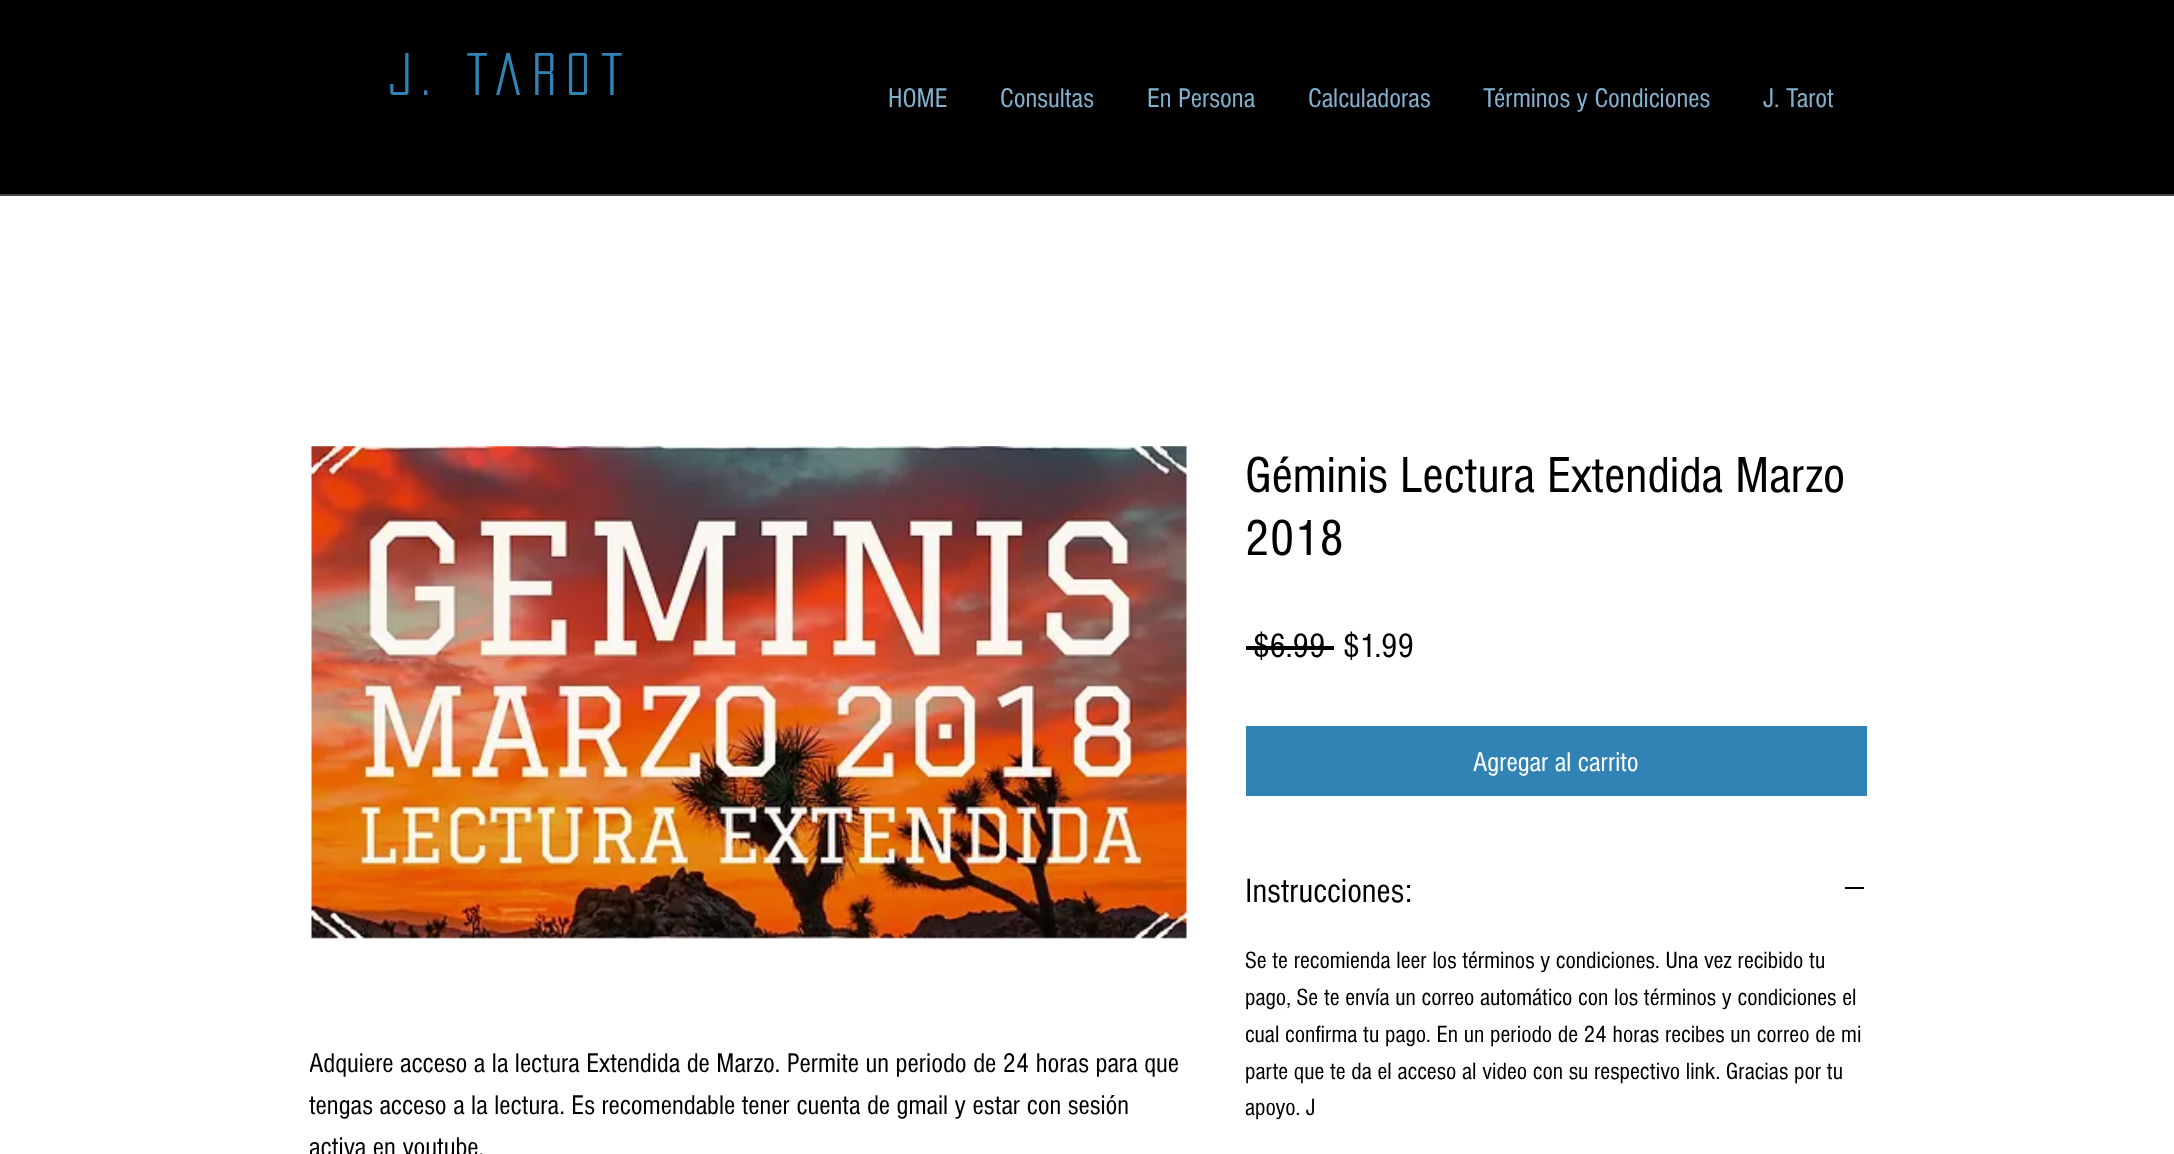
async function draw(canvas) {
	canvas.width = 2174;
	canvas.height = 1154;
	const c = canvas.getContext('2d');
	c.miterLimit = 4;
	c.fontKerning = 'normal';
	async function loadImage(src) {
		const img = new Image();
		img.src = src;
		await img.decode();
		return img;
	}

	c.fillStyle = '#fff';
	c.fillRect(0, 0, 2174, 1154);
	c.fillStyle = '#000';
	c.fillRect(0, 0, 2174, 194);
	c.fillStyle = '#3c4547';
	c.fillRect(0, 194, 2174, 2);
	c.letterSpacing = '10.5px';
	c.font = '52.5px "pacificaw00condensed"';
	c.fillStyle = '#3182b5';
	c.fillText('J. Tarot', 388, 95);
	c.letterSpacing = '0px';
	c.font = '28px "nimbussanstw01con"';
	c.fillStyle = '#83b1ce';
	for (const [text, x, y] of [
		['HOME', 888, 107],
		['Consultas', 1000, 107],
		['En Persona', 1147, 107],
		['Calculadoras', 1308, 107],
		['Términos y Condiciones', 1483, 107],
		['J. Tarot', 1763, 107],
	]) {
		c.fillText(text, x, y);
	}
	c.drawImage(await loadImage('img1.png'), 311, 446, 876, 493);
	c.save();
	c.beginPath();
	c.rect(310, 1043, 875, 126);
	c.clip();
	c.fillStyle = '#000';
	c.fillText('Adquiere acceso a la lectura Extendida de Marzo. Permite un periodo de 24 horas para que', 309, 1072);
	c.restore();
	c.fillStyle = '#000';
	c.fillText('tengas acceso a la lectura. Es recomendable tener cuenta de gmail y estar con sesión', 309, 1114);
	c.save();
	c.beginPath();
	c.rect(310, 1043, 875, 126);
	c.clip();
	c.fillText('activa en youtube.', 309, 1156);
	c.restore();
	c.font = '52.5px "nimbussanstw01con"';
	c.fillText('Géminis Lectura Extendida Marzo', 1245, 492);
	c.fillText('2018', 1245, 555);
	c.font = '35px "nimbussanstw01con"';
	c.fillText('$6.99', 1253, 657);
	c.fillRect(1246, 646, 88, 4);
	c.fillText('$1.99', 1343, 657);
	c.fillStyle = '#3182b5';
	c.fillRect(1246, 726, 621, 70);
	c.font = '28px "nimbussanstw01con"';
	c.fillStyle = '#fff';
	c.fillText('Agregar al carrito', 1473, 771);
	c.font = '35px "nimbussanstw01con"';
	c.fillStyle = '#000';
	c.fillText('Instrucciones:', 1245, 902);
	c.fillRect(1845, 887, 19, 2);
	c.font = '24.5px "nimbussanstw01con"';
	for (const [text, x, y] of [
		['Se te recomienda leer los términos y condiciones. Una vez recibido tu', 1245, 968],
		['pago, Se te envía un correo automático con los términos y condiciones el', 1245, 1005],
		['cual confirma tu pago. En un periodo de 24 horas recibes un correo de mi', 1245, 1042],
		['parte que te da el acceso al video con su respectivo link. Gracias por tu', 1245, 1079],
		['apoyo. J', 1245, 1115],
	]) {
		c.fillText(text, x, y);
	}
}

draw(document.querySelector('canvas'));
